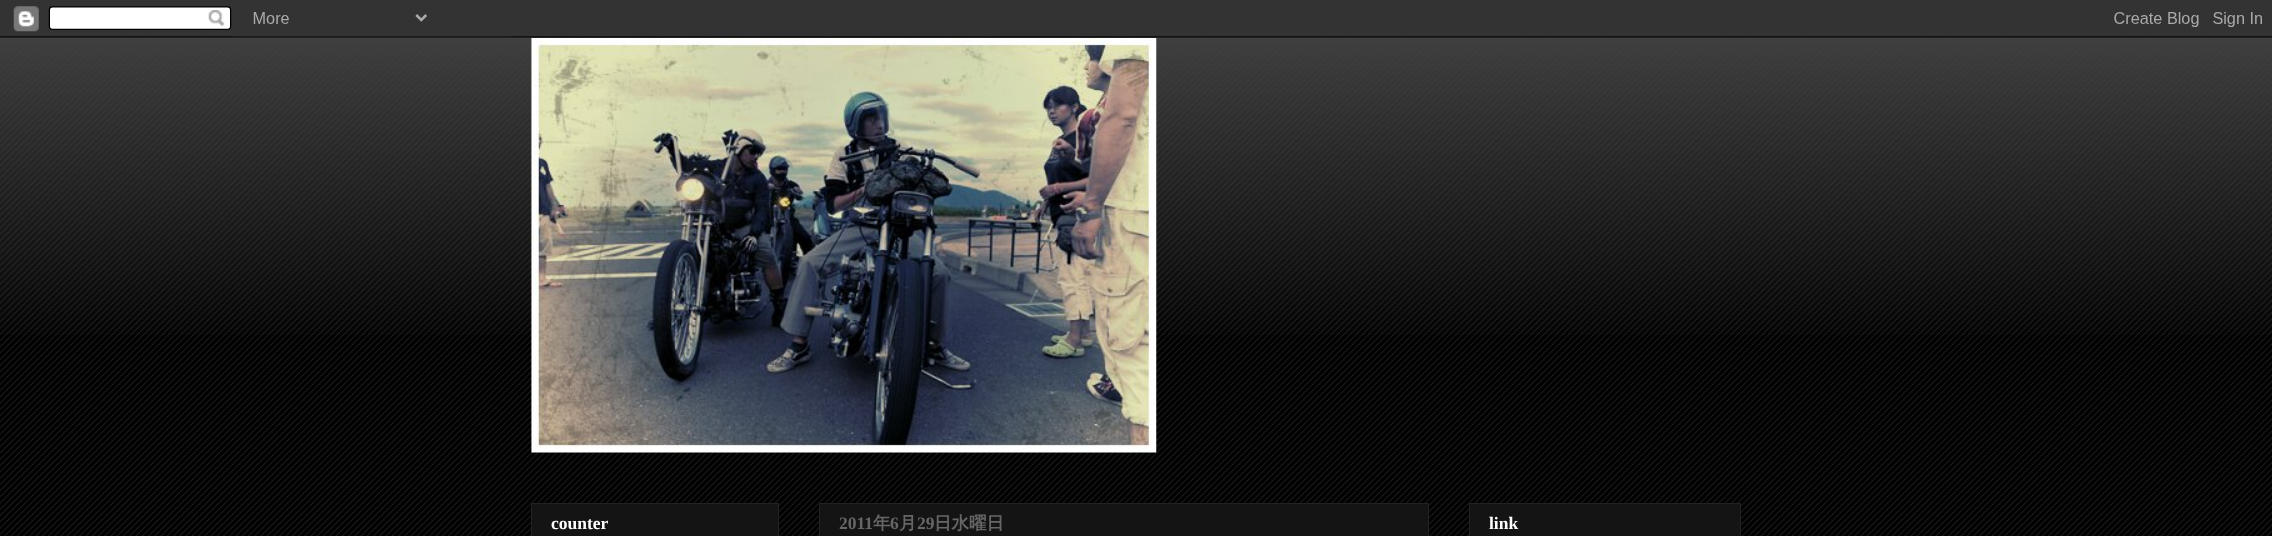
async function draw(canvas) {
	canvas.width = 2272;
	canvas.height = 536;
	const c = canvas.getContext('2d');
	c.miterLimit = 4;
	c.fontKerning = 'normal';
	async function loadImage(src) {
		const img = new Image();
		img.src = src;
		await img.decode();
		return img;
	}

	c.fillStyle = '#000';
	c.fillRect(0, 0, 2272, 536);
	c.drawImage(await loadImage('img2.png'), 0, 36, 2272, 500);
	c.drawImage(await loadImage('img3.png'), 0, 36, 2272, 299);
	c.drawImage(await loadImage('img1.png'), 0, 0, 2272, 38);
	c.drawImage(await loadImage('img4.png'), 531, 38, 626, 415);
	c.fillStyle = '#141414';
	c.beginPath();
	c.rect(531.5, 503.5, 247, 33);
	c.fill();
	c.strokeStyle = '#222';
	c.stroke();
	c.font = 'bold 17.5px Liberation Serif';
	c.fillStyle = '#fff';
	c.fillText('counter', 551, 529);
	c.fillStyle = '#141414';
	c.beginPath();
	c.rect(819.5, 503.5, 609, 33);
	c.fill();
	c.stroke();
	c.fillStyle = '#666';
	c.fillText('2011', 839, 529);
	c.font = 'bold 17.5px WenQuanYi Zen Hei';
	c.fillText('年', 873, 529);
	c.font = 'bold 17.5px Liberation Serif';
	c.fillText('6', 890, 529);
	c.font = 'bold 17.5px WenQuanYi Zen Hei';
	c.fillText('月', 899, 529);
	c.font = 'bold 17.5px Liberation Serif';
	c.fillText('29', 917, 529);
	c.font = 'bold 17.5px WenQuanYi Zen Hei';
	c.fillText('日水曜日', 934, 529);
	c.fillStyle = '#141414';
	c.beginPath();
	c.rect(1469.5, 503.5, 271, 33);
	c.fill();
	c.stroke();
	c.font = 'bold 17.5px Liberation Serif';
	c.fillStyle = '#fff';
	c.fillText('link', 1489, 529);
}

draw(document.querySelector('canvas'));
